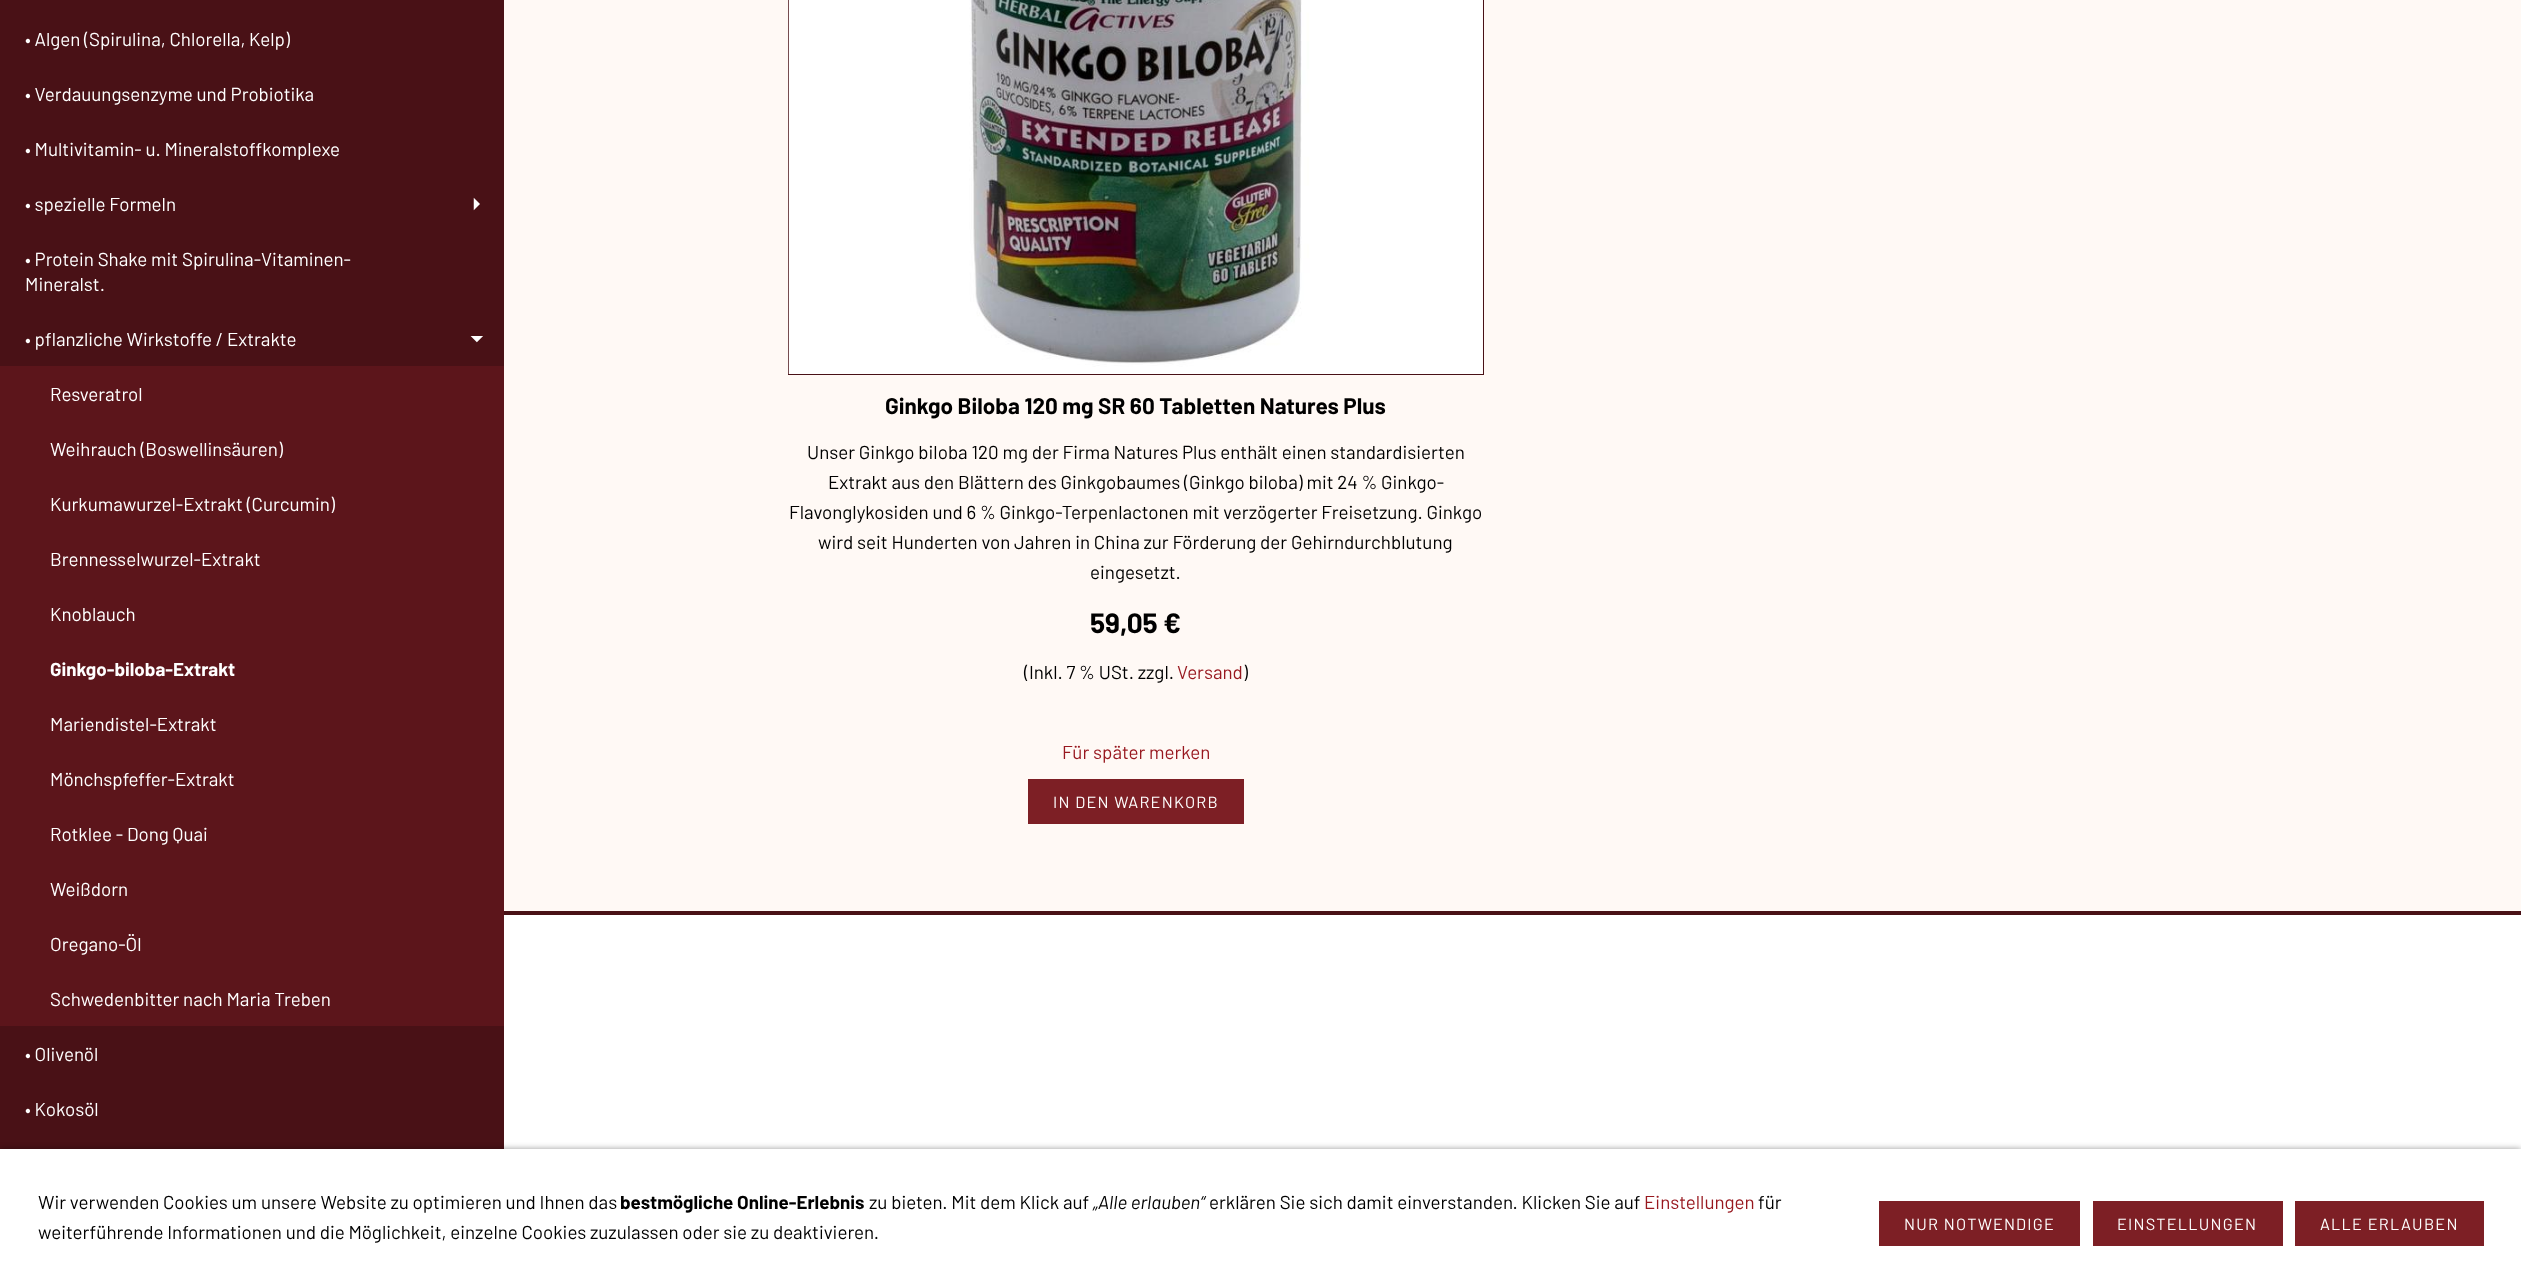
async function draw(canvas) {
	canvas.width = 2521;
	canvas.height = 1283;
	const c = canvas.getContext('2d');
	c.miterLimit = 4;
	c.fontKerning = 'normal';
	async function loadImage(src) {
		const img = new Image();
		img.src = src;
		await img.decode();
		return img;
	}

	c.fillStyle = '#fff';
	c.fillRect(0, 0, 2521, 1283);
	c.fillStyle = '#491116';
	c.fillRect(0, 0, 504, 1149);
	c.font = '18.75px Barlow';
	c.fillStyle = '#fff';
	for (const [text, x, y] of [
		['• Algen (Spirulina, Chlorella, Kelp)', 25, 46],
		['• Verdauungsenzyme und Probiotika', 25, 101],
		['• Multivitamin- u. Mineralstoffkomplexe', 25, 156],
		['• spezielle Formeln', 25, 211],
	]) {
		c.fillText(text, x, y);
	}
	c.drawImage(await loadImage('img1.png'), 473, 197, 7, 14);
	for (const [text, x, y] of [
		['• Protein Shake mit Spirulina-Vitaminen-', 25, 266],
		['Mineralst.', 25, 291],
		['• pflanzliche Wirkstoffe / Extrakte', 25, 346],
	]) {
		c.fillText(text, x, y);
	}
	c.drawImage(await loadImage('img2.png'), 470, 336, 13, 7);
	c.fillStyle = '#5c151b';
	c.fillRect(0, 366, 504, 660);
	c.fillStyle = '#fff';
	for (const [text, x, y] of [
		['Resveratrol', 50, 401],
		['Weihrauch (Boswellinsäuren)', 50, 456],
		['Kurkumawurzel-Extrakt (Curcumin)', 50, 511],
		['Brennesselwurzel-Extrakt', 50, 566],
		['Knoblauch', 50, 621],
	]) {
		c.fillText(text, x, y);
	}
	c.font = 'bold 18.75px Barlow';
	c.fillText('Ginkgo-biloba-Extrakt', 50, 676);
	c.font = '18.75px Barlow';
	for (const [text, x, y] of [
		['Mariendistel-Extrakt', 50, 731],
		['Mönchspfeffer-Extrakt', 50, 786],
		['Rotklee - Dong Quai', 50, 841],
		['Weißdorn', 50, 896],
		['Oregano-Öl', 50, 951],
		['Schwedenbitter nach Maria Treben', 50, 1006],
		['• Olivenöl', 25, 1061],
		['• Kokosöl', 25, 1116],
	]) {
		c.fillText(text, x, y);
	}
	c.fillStyle = '#fff9f5';
	c.fillRect(504, 0, 2017, 911);
	c.fillStyle = '#491116';
	c.fillRect(504, 911, 2017, 4);
	c.strokeStyle = '#491116';
	c.strokeRect(788.5, -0.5, 695, 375);
	c.drawImage(await loadImage('img3.png'), 788, 0, 695, 374);
	c.font = 'bold 22.5px Barlow';
	c.fillStyle = '#000';
	c.fillText('Ginkgo Biloba 120 mg SR 60 Tabletten Natures Plus', 885, 414);
	c.font = '18.75px Barlow';
	for (const [text, x, y] of [
		['Unser Ginkgo biloba 120 mg der Firma Natures Plus enthält einen standardisierten', 807, 459],
		['Extrakt aus den Blättern des Ginkgobaumes (Ginkgo biloba) mit 24 % Ginkgo-', 828, 489],
		['Flavonglykosiden und 6 % Ginkgo-Terpenlactonen mit verzögerter Freisetzung. Ginkgo', 789, 519],
		['wird seit Hunderten von Jahren in China zur Förderung der Gehirndurchblutung', 818, 549],
		['eingesetzt.', 1090, 579],
	]) {
		c.fillText(text, x, y);
	}
	c.font = 'bold 28px Barlow';
	c.fillText('59,05 €', 1090, 633);
	c.font = '18.75px Barlow';
	c.fillText('(Inkl. 7 % USt. zzgl.', 1024, 679);
	c.fillStyle = '#98181f';
	c.fillText('Versand', 1177, 679);
	c.fillStyle = '#000';
	c.fillText(')', 1243, 679);
	c.fillStyle = '#98181f';
	c.fillText('Für später merken', 1062, 759);
	c.fillStyle = '#7d1f25';
	c.fillRect(1028, 779, 216, 45);
	c.letterSpacing = '1.25px';
	c.font = '16.25px Barlow';
	c.fillStyle = '#fff';
	c.fillText('IN DEN WARENKORB', 1053, 808);
	c.fillStyle = '#00000066';
	c.filter = 'blur(3px)';
	c.beginPath();
	c.rect(0, 1149, 2521, 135);
	c.fill();
	c.filter = 'none';
	c.fillStyle = '#fff';
	c.fillRect(0, 1149, 2521, 134);
	c.letterSpacing = '0px';
	c.font = '18.75px Barlow';
	c.fillStyle = '#000';
	c.fillText('Wir verwenden Cookies um unsere Website zu optimieren und Ihnen das', 38, 1209);
	c.font = 'bold 18.75px Barlow';
	c.fillText('bestmögliche Online-Erlebnis', 620, 1209);
	c.font = '18.75px Barlow';
	c.fillText('zu bieten. Mit dem Klick auf', 869, 1209);
	c.font = 'italic 18.75px Barlow';
	c.fillText('„Alle erlauben“', 1093, 1209);
	c.font = '18.75px Barlow';
	c.fillText('erklären Sie sich damit einverstanden. Klicken Sie auf', 1209, 1209);
	c.fillStyle = '#98181f';
	c.fillText('Einstellungen', 1644, 1209);
	c.fillStyle = '#000';
	c.fillText('für', 1758, 1209);
	c.fillText('weiterführende Informationen und die Möglichkeit, einzelne Cookies zuzulassen oder sie zu deaktivieren.', 38, 1239);
	c.fillStyle = '#7d1f25';
	c.fillRect(1879, 1201, 201, 45);
	c.letterSpacing = '1.25px';
	c.font = '16.25px Barlow';
	c.fillStyle = '#fff';
	c.fillText('NUR NOTWENDIGE', 1904, 1230);
	c.fillStyle = '#7d1f25';
	c.fillRect(2093, 1201, 190, 45);
	c.fillStyle = '#fff';
	c.fillText('EINSTELLUNGEN', 2117, 1230);
	c.fillStyle = '#7d1f25';
	c.fillRect(2295, 1201, 189, 45);
	c.fillStyle = '#fff';
	c.fillText('ALLE ERLAUBEN', 2320, 1230);
}

draw(document.querySelector('canvas'));
